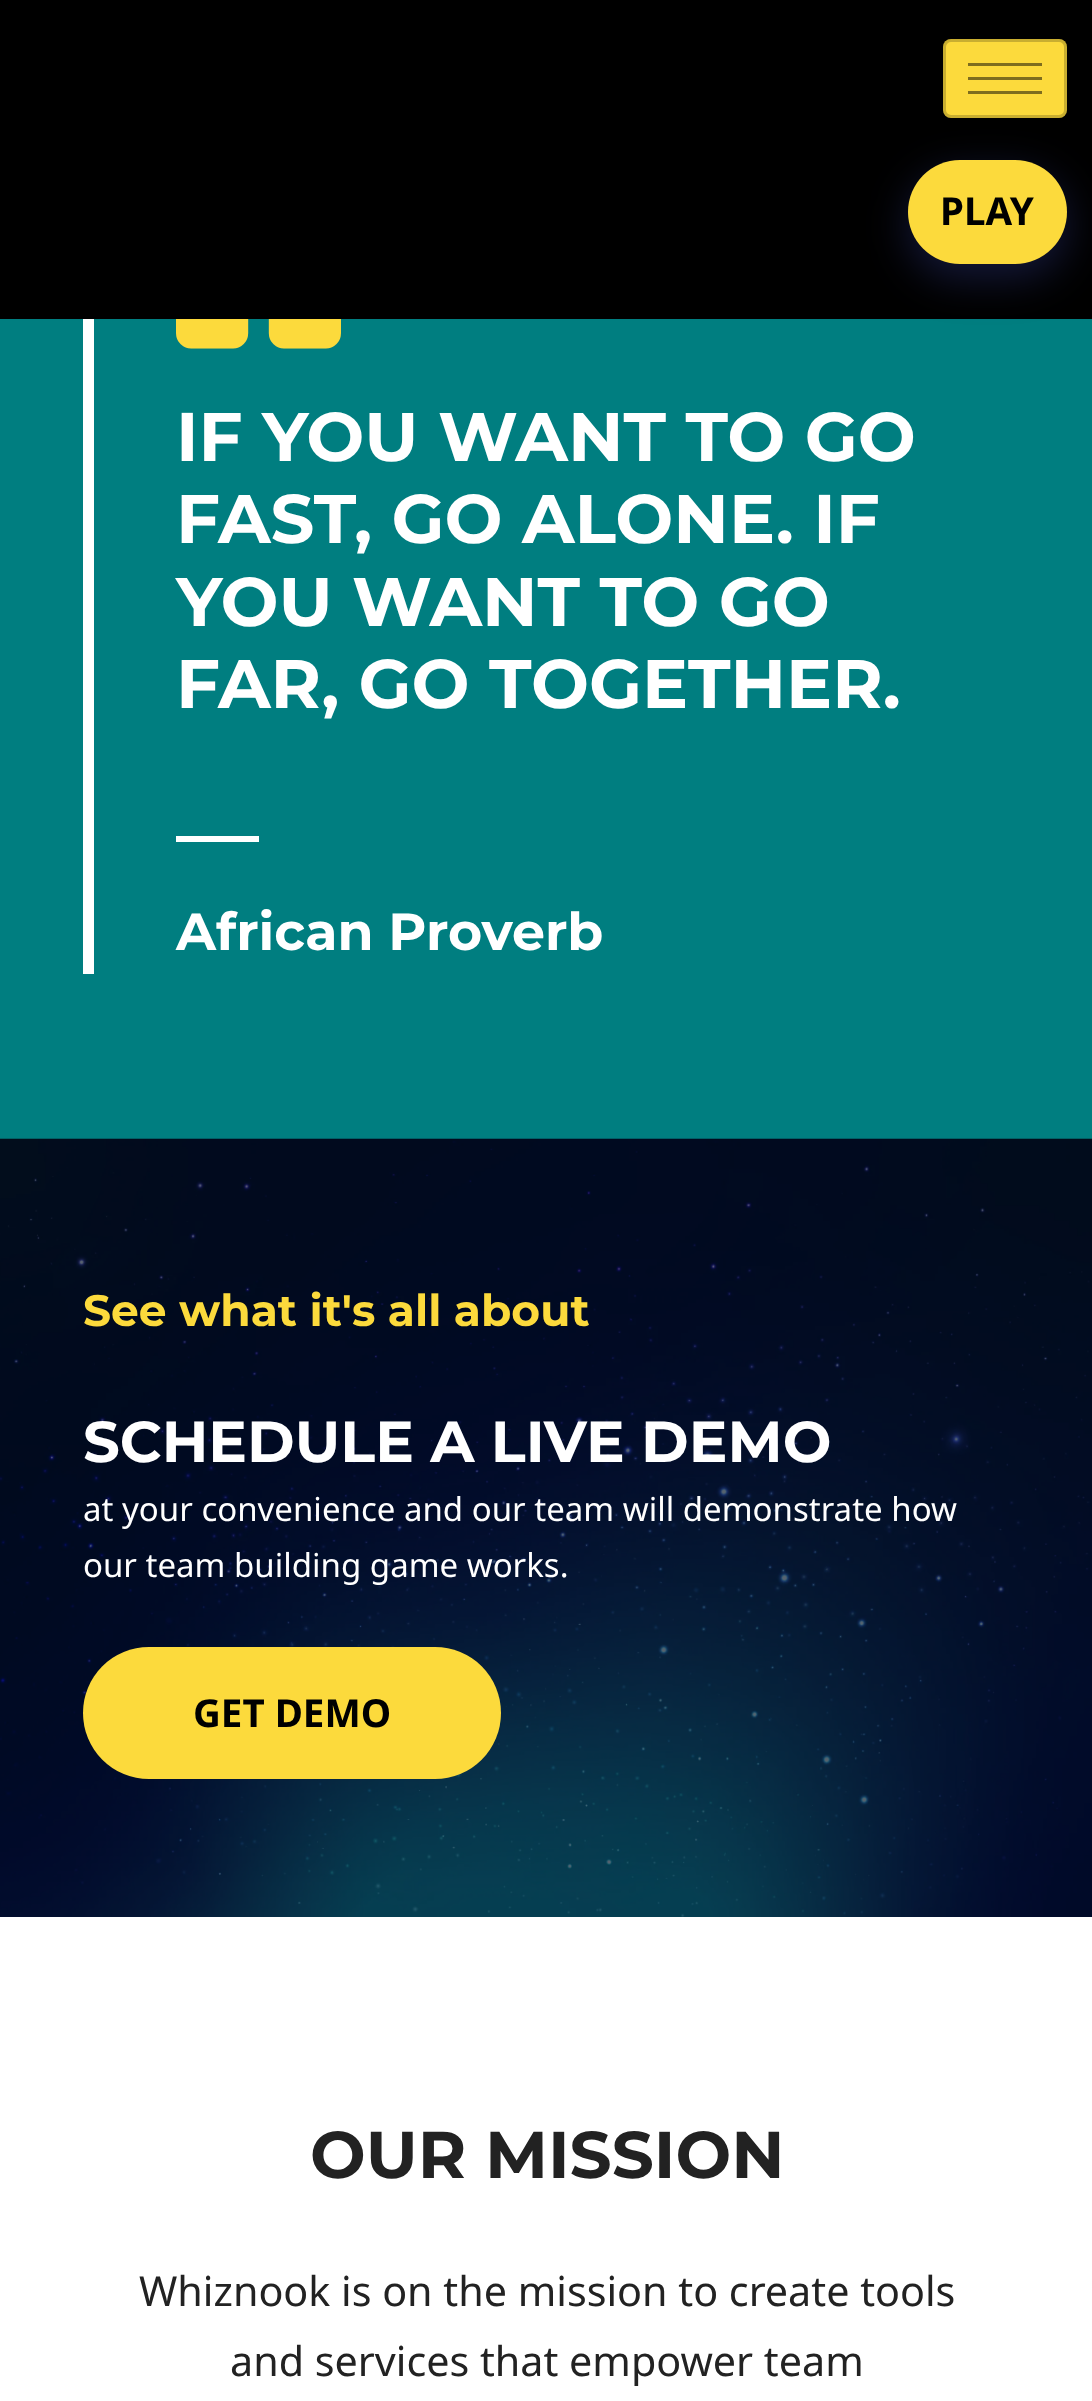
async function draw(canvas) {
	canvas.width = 1092;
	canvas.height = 2401;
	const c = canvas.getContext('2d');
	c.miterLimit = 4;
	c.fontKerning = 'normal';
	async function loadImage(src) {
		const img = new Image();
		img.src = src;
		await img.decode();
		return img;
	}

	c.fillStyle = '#fff';
	c.fillRect(0, 0, 1092, 2401);
	c.fillStyle = '#000';
	c.fillRect(0, 0, 1092, 319);
	c.fillStyle = '#007e80';
	c.fillRect(0, 319, 1092, 820);
	c.fillStyle = '#27307082';
	c.filter = 'blur(20.5px)';
	c.beginPath();
	c.roundRect(908, 173, 159, 105, 52.5);
	c.fill();
	c.filter = 'none';
	c.fillStyle = '#fcda3c';
	c.beginPath();
	c.roundRect(943, 39, 124, 79, 8);
	c.fill();
	c.beginPath();
	c.roundRect(944.5, 40.5, 121, 76, 6.5);
	c.strokeStyle = '#00000033';
	c.lineWidth = 3;
	c.stroke();
	for (const [x, y, w, h, color] of [
		[968, 63, 74, 3, '#7e6d1e'],
		[968, 77, 74, 3, '#7e6d1e'],
		[968, 91, 74, 3, '#7e6d1e'],
	]) {
		c.fillStyle = color;
		c.fillRect(x, y, w, h);
	}
	c.fillStyle = '#fcda3c';
	c.beginPath();
	c.roundRect(908, 160, 159, 104, 52);
	c.fill();
	c.font = 'bold 38.5px Noto Sans';
	c.fillStyle = '#000';
	c.fillText('PLAY', 940, 225);
	c.fillStyle = '#fff';
	c.fillRect(83, 319, 11, 655);
	c.drawImage(await loadImage('img1.png'), 176, 319, 165, 30);
	c.font = '100 68.75px Montserrat';
	for (const [text, x, y] of [
		['IF YOU WANT TO GO', 176, 461],
		['FAST, GO ALONE. IF', 176, 543],
		['YOU WANT TO GO', 176, 626],
		['FAR, GO TOGETHER.', 176, 708],
	]) {
		c.fillText(text, x, y);
	}
	c.fillRect(176, 836, 83, 6);
	c.font = '100 52.25px Montserrat';
	c.fillText('African Proverb', 176, 950);
	c.drawImage(await loadImage('img2.png'), 0, 1138, 1092, 779);
	c.font = '100 44px Montserrat';
	c.fillStyle = '#fcda3c';
	c.fillText('See what it\'s all about', 83, 1326);
	c.font = '100 57.75px Montserrat';
	c.fillStyle = '#fff';
	c.fillText('SCHEDULE A LIVE DEMO', 83, 1462);
	c.font = '33px Noto Sans';
	c.fillText('at your convenience and our team will demonstrate how', 83, 1521);
	c.fillText('our team building game works.', 83, 1577);
	c.fillStyle = '#fcda3c';
	c.beginPath();
	c.roundRect(83, 1647, 418, 132, 66);
	c.fill();
	c.font = 'bold 38.5px Noto Sans';
	c.fillStyle = '#000';
	c.fillText('GET DEMO', 193, 1727);
	c.font = '100 66px Montserrat';
	c.fillStyle = '#222';
	c.fillText('OUR MISSION', 310, 2178);
	c.font = '41.25px Noto Sans';
	c.fillText('Whiznook is on the mission to create tools', 139, 2306);
	c.fillText('and services that empower team', 230, 2376);
}

draw(document.querySelector('canvas'));
